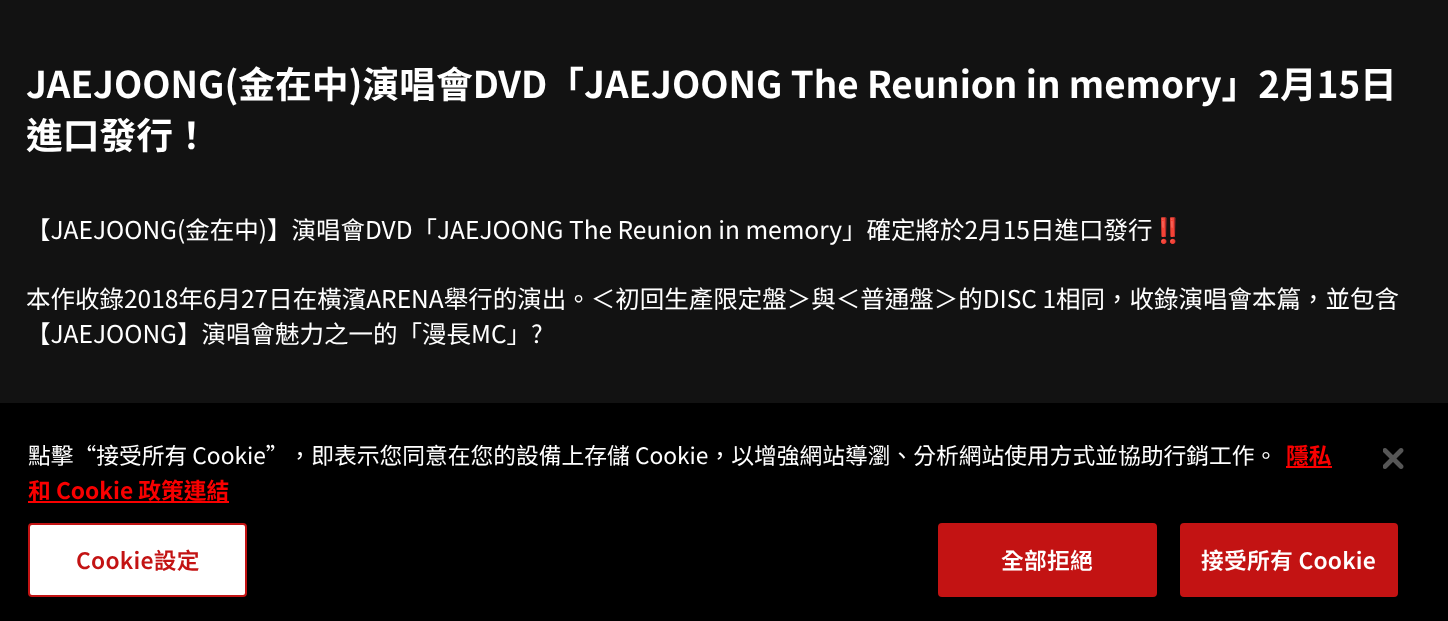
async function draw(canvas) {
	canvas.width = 1448;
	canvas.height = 621;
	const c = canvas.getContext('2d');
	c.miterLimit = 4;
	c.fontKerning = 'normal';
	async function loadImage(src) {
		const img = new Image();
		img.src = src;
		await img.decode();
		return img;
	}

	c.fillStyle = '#121212';
	c.fillRect(0, 0, 1448, 621);
	c.font = 'bold 36.75px Noto Sans TC';
	c.fillStyle = '#fff';
	c.fillText('JAEJOONG(金在中)演唱會DVD「JAEJOONG The Reunion in memory」2月15日', 26, 98);
	c.fillText('進口發行！', 26, 149);
	c.font = '24.5px Noto Sans TC';
	c.fillText('【JAEJOONG(金在中)】演唱會DVD「JAEJOONG The Reunion in memory」確定將於2月15日進口發行', 26, 239);
	c.font = '24.5px Noto Color Emoji';
	c.fillText('‼️', 1153, 239);
	c.font = '24.5px Noto Sans TC';
	c.fillText('本作收錄2018年6月27日在橫濱ARENA舉行的演出。＜初回生產限定盤＞與＜普通盤＞的DISC 1相同，收錄演唱會本篇，並包含', 26, 308);
	c.fillText('【JAEJOONG】演唱會魅力之一的「漫長MC」?', 26, 343);
	c.fillStyle = '#000';
	c.fillRect(0, 403, 1448, 218);
	c.font = '22.75px Noto Sans TC';
	c.fillStyle = '#fff';
	c.fillText('點擊“接受所有 Cookie”，即表示您同意在您的設備上存儲 Cookie，以增強網站導瀏、分析網站使用方式並協助行銷工作。', 28, 464);
	c.font = 'bold 22.75px Noto Sans TC';
	c.fillStyle = '#f90000';
	c.fillText('隱私', 1286, 464);
	c.fillRect(1286, 466, 46, 2);
	c.fillRect(28, 501, 201, 2);
	c.fillText('和 Cookie 政策連結', 28, 499);
	c.fillStyle = '#fff';
	c.beginPath();
	c.roundRect(29, 524, 217, 72, 3);
	c.fill();
	c.strokeStyle = '#c31313';
	c.lineWidth = 2;
	c.stroke();
	c.letterSpacing = '0.25px';
	c.font = '600 22.75px Noto Sans TC';
	c.fillStyle = '#c31313';
	c.fillText('Cookie設定', 76, 569);
	c.beginPath();
	c.roundRect(939, 524, 217, 72, 3);
	c.fill();
	c.stroke();
	c.fillStyle = '#fff';
	c.fillText('全部拒絕', 1001, 569);
	c.fillStyle = '#c31313';
	c.beginPath();
	c.roundRect(1181, 524, 216, 72, 3);
	c.fill();
	c.stroke();
	c.fillStyle = '#fff';
	c.fillText('接受所有 Cookie', 1201, 569);
	c.drawImage(await loadImage('img1.png'), 1383, 448, 21, 21);
}

draw(document.querySelector('canvas'));
